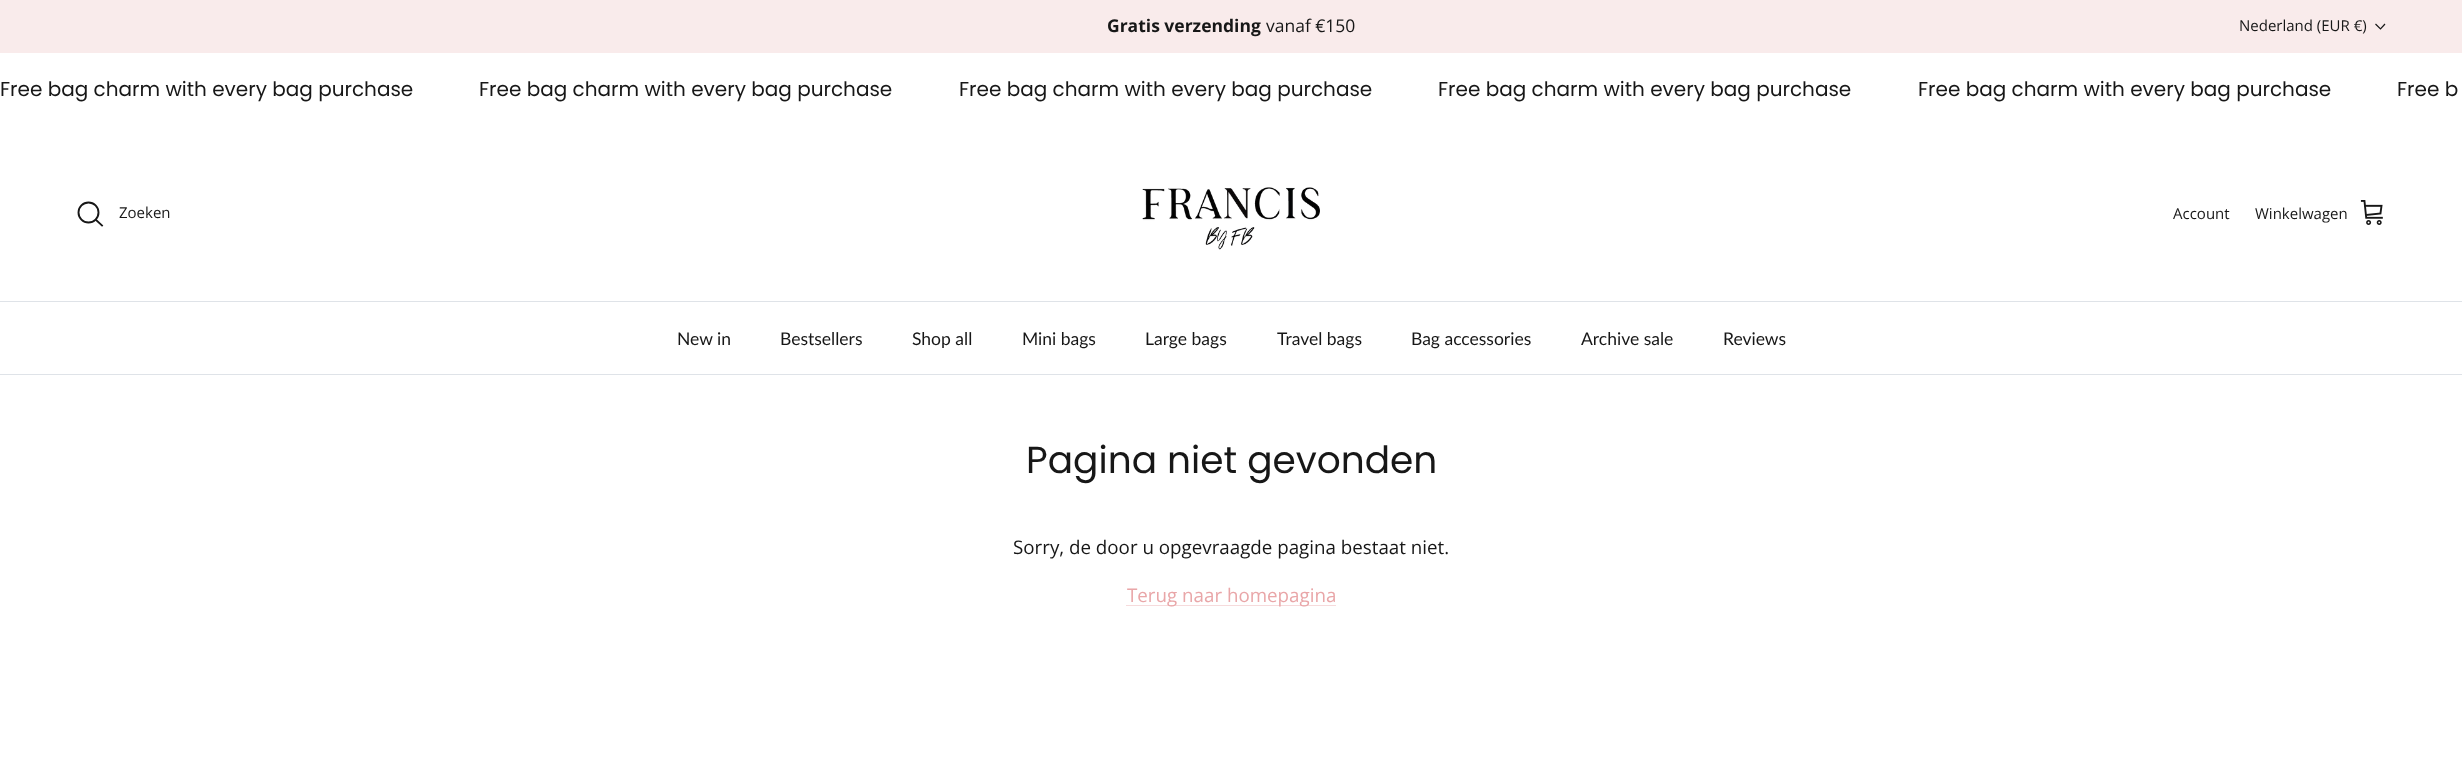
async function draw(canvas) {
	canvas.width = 2462;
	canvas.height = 763;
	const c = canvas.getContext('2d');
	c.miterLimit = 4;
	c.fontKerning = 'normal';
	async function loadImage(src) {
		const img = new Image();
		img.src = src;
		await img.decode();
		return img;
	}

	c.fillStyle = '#fff';
	c.fillRect(0, 0, 2462, 763);
	c.fillStyle = '#f9ebeb';
	c.fillRect(0, 0, 2462, 53);
	c.font = 'bold 17.5px Open Sans';
	c.fillStyle = '#171717';
	c.fillText('Gratis verzending', 1107, 32);
	c.font = '17.5px Open Sans';
	c.fillText('vanaf €150', 1266, 32);
	c.font = '15px Open Sans';
	c.fillText('Nederland (EUR €)', 2239, 31);
	c.beginPath();
	c.moveTo(2385, 24);
	c.lineTo(2380.5, 29);
	c.lineTo(2375.5, 24);
	c.strokeStyle = '#171717';
	c.lineWidth = 1.2;
	c.stroke();
	c.font = '20px Poppins';
	for (const [text, x, y] of [
		['Free bag charm with every bag purchase', 0, 96],
		['Free bag charm with every bag purchase', 479, 96],
		['Free bag charm with every bag purchase', 959, 96],
		['Free bag charm with every bag purchase', 1438, 96],
		['Free bag charm with every bag purchase', 1918, 96],
		['Free b', 2397, 96],
	]) {
		c.fillText(text, x, y);
	}
	c.fillStyle = '#dfe3e8';
	c.fillRect(0, 301, 2462, 1);
	c.beginPath();
	c.arc(88.5, 212.5, 10, 0, 2 * Math.PI);
	c.lineWidth = 1.9;
	c.stroke();
	c.font = '15px Open Sans';
	c.fillStyle = '#171717';
	c.fillText('Zoeken', 119, 218);
	c.beginPath();
	c.moveTo(96, 220);
	c.lineTo(102, 225.5);
	c.lineCap = 'square';
	c.stroke();
	c.drawImage(await loadImage('img1.png'), 1142, 187, 178, 63);
	c.fillText('Account', 2173, 219);
	c.fillText('Winkelwagen', 2255, 219);
	c.drawImage(await loadImage('img2.png'), 2360, 200, 23, 25);
	c.fillStyle = '#dfe3e8';
	c.fillRect(0, 374, 2462, 1);
	c.font = '17.5px Lato';
	c.fillStyle = '#171717';
	for (const [text, x, y] of [
		['New in', 677, 345],
		['Bestsellers', 780, 345],
		['Shop all', 912, 345],
		['Mini bags', 1022, 345],
		['Large bags', 1145, 345],
		['Travel bags', 1277, 345],
		['Bag accessories', 1411, 345],
		['Archive sale', 1581, 345],
		['Reviews', 1723, 345],
	]) {
		c.fillText(text, x, y);
	}
	c.font = '37.5px Poppins';
	c.fillText('Pagina niet gevonden', 1026, 473);
	c.font = '18.75px Open Sans';
	c.fillText('Sorry, de door u opgevraagde pagina bestaat niet.', 1013, 554);
	c.fillStyle = '#f6dbdc';
	c.fillRect(1126, 605, 210, 1);
	c.fillStyle = '#e9a6a8';
	c.fillText('Terug naar homepagina', 1127, 602);
}

draw(document.querySelector('canvas'));
